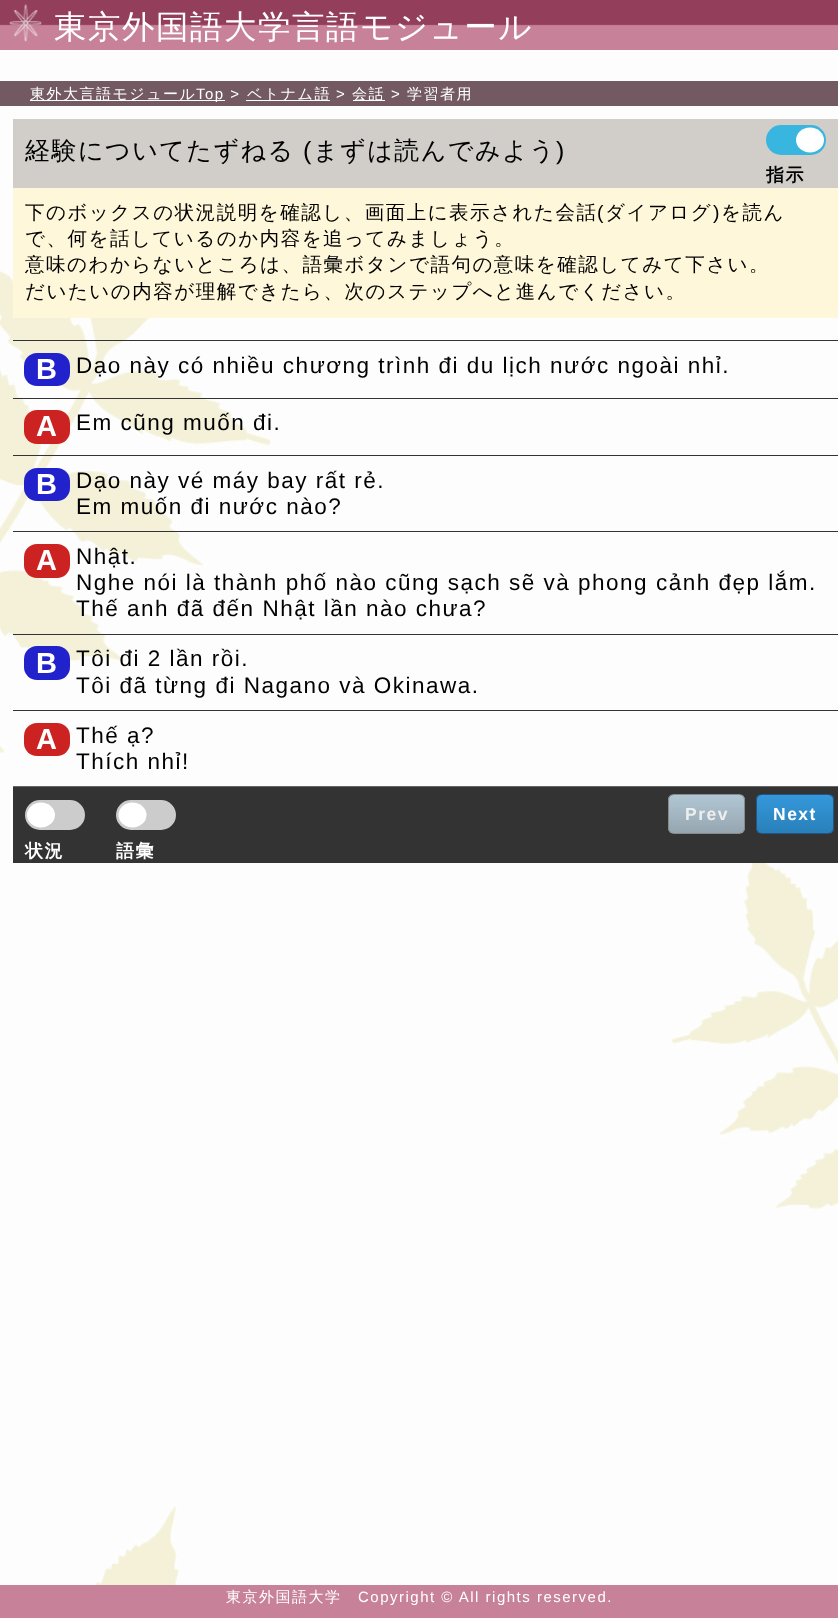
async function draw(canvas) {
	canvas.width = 838;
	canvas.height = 1618;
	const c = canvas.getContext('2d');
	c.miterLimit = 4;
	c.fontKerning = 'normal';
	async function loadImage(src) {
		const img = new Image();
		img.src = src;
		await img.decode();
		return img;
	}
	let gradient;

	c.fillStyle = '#fdfdfd';
	c.fillRect(0, 0, 838, 1618);
	c.drawImage(await loadImage('img1.png'), 0, 168, 838, 1417);
	c.drawImage(await loadImage('img2.png'), 0, 0, 838, 50);
	c.drawImage(await loadImage('img3.png'), 9, 4, 33, 38);
	c.letterSpacing = '1.5px';
	c.font = '500 32.5px WenQuanYi Zen Hei';
	c.fillStyle = '#fff';
	c.fillText('東京外国語大学言語モジュール', 54, 38);
	c.fillStyle = '#735a62';
	c.fillRect(0, 81, 838, 25);
	c.fillStyle = '#fff';
	c.fillRect(30, 100, 195, 1);
	c.font = '500 15px WenQuanYi Zen Hei';
	c.fillText('東外大言語モジュール', 30, 99);
	c.font = '15px Liberation Sans';
	c.fillText('Top >', 196, 99);
	c.fillRect(246, 100, 84, 1);
	c.font = '500 15px WenQuanYi Zen Hei';
	c.fillText('ベトナム語', 247, 99);
	c.font = '15px Liberation Sans';
	c.fillText('>', 336, 99);
	c.fillRect(353, 100, 32, 1);
	c.font = '500 15px WenQuanYi Zen Hei';
	c.fillText('会話', 352, 99);
	c.font = '15px Liberation Sans';
	c.fillText('>', 391, 99);
	c.font = '500 15px WenQuanYi Zen Hei';
	c.fillText('学習者用', 407, 99);
	c.fillStyle = '#d1ceca';
	c.fillRect(13, 119, 825, 69);
	c.font = '500 25px WenQuanYi Zen Hei';
	c.fillStyle = '#000';
	c.fillText('経験についてたずねる', 25, 159);
	c.font = '25px Liberation Sans';
	c.fillText('(', 303, 159);
	c.font = '500 25px WenQuanYi Zen Hei';
	c.fillText('まずは読んでみよう', 313, 159);
	c.font = '25px Liberation Sans';
	c.fillText(')', 556, 159);
	c.fillStyle = '#39b6df';
	c.beginPath();
	c.roundRect(766, 125, 60, 30, 15);
	c.fill();
	c.fillStyle = '#fff';
	c.beginPath();
	c.ellipse(810, 140, 14, 12.5, 0, 0, 2 * Math.PI);
	c.fill();
	c.font = 'bold 18px WenQuanYi Zen Hei';
	c.fillStyle = '#000';
	c.fillText('指示', 766, 181);
	c.fillStyle = '#fff7d9';
	c.fillRect(13, 188, 825, 130);
	c.font = '500 19.5px WenQuanYi Zen Hei';
	c.fillStyle = '#000';
	c.fillText('下のボックスの状況説明を確認し、画面上に表示された会話', 25, 219);
	c.font = '19.5px Liberation Sans';
	c.fillText('(', 597, 219);
	c.font = '500 19.5px WenQuanYi Zen Hei';
	c.fillText('ダイアログ', 605, 219);
	c.font = '19.5px Liberation Sans';
	c.fillText(')', 713, 219);
	c.font = '500 19.5px WenQuanYi Zen Hei';
	for (const [text, x, y] of [
		['を読ん', 721, 219],
		['で、何を話しているのか内容を追ってみましょう。', 25, 245],
		['意味のわからないところは、語彙ボタンで語句の意味を確認してみて下さい。', 25, 271],
		['だいたいの内容が理解できたら、次のステップへと進んでください。', 25, 298],
	]) {
		c.fillText(text, x, y);
	}
	c.fillStyle = '#333';
	c.fillRect(13, 340, 825, 1);
	c.fillStyle = '#22c';
	c.beginPath();
	c.roundRect(24, 353, 46, 33, 13);
	c.fill();
	c.font = 'bold 29px Liberation Sans';
	c.fillStyle = '#fff';
	c.fillText('B', 36, 379);
	c.font = '22.5px Liberation Sans';
	c.fillStyle = '#000';
	c.fillText('Dạo này có nhiều chương trình đi du lịch nước ngoài nhỉ.', 76, 373);
	c.fillStyle = '#333';
	c.fillRect(13, 398, 825, 1);
	c.fillStyle = '#c22';
	c.beginPath();
	c.roundRect(24, 410, 46, 34, 13);
	c.fill();
	c.font = 'bold 29px Liberation Sans';
	c.fillStyle = '#fff';
	c.fillText('A', 36, 436);
	c.font = '22.5px Liberation Sans';
	c.fillStyle = '#000';
	c.fillText('Em cũng muốn đi.', 76, 430);
	c.fillStyle = '#333';
	c.fillRect(13, 455, 825, 1);
	c.fillStyle = '#22c';
	c.beginPath();
	c.roundRect(24, 468, 46, 33, 13);
	c.fill();
	c.font = 'bold 29px Liberation Sans';
	c.fillStyle = '#fff';
	c.fillText('B', 36, 494);
	c.font = '22.5px Liberation Sans';
	c.fillStyle = '#000';
	c.fillText('Dạo này vé máy bay rất rẻ.', 76, 488);
	c.fillText('Em muốn đi nước nào?', 76, 514);
	c.fillStyle = '#333';
	c.fillRect(13, 531, 825, 1);
	c.fillStyle = '#c22';
	c.beginPath();
	c.roundRect(24, 544, 46, 34, 13);
	c.fill();
	c.font = 'bold 29px Liberation Sans';
	c.fillStyle = '#fff';
	c.fillText('A', 36, 570);
	c.font = '22.5px Liberation Sans';
	c.fillStyle = '#000';
	for (const [text, x, y] of [
		['Nhật.', 76, 564],
		['Nghe nói là thành phố nào cũng sạch sẽ và phong cảnh đẹp lắm.', 76, 590],
		['Thế anh đã đến Nhật lần nào chưa?', 76, 616],
	]) {
		c.fillText(text, x, y);
	}
	c.fillStyle = '#333';
	c.fillRect(13, 634, 825, 1);
	c.fillStyle = '#22c';
	c.beginPath();
	c.roundRect(24, 646, 46, 34, 13);
	c.fill();
	c.font = 'bold 29px Liberation Sans';
	c.fillStyle = '#fff';
	c.fillText('B', 36, 673);
	c.font = '22.5px Liberation Sans';
	c.fillStyle = '#000';
	c.fillText('Tôi đi 2 lần rồi.', 76, 666);
	c.fillText('Tôi đã từng đi Nagano và Okinawa.', 76, 693);
	c.fillStyle = '#333';
	c.fillRect(13, 710, 825, 1);
	c.fillStyle = '#c22';
	c.beginPath();
	c.roundRect(24, 723, 46, 33, 13);
	c.fill();
	c.font = 'bold 29px Liberation Sans';
	c.fillStyle = '#fff';
	c.fillText('A', 36, 749);
	c.font = '22.5px Liberation Sans';
	c.fillStyle = '#000';
	c.fillText('Thế ạ?', 76, 743);
	c.fillText('Thích nhỉ!', 76, 769);
	c.fillStyle = '#333';
	c.fillRect(13, 787, 825, 76);
	c.fillStyle = '#666';
	c.fillRect(13, 786, 825, 1);
	c.save();
	c.beginPath();
	c.roundRect(668, 794, 77, 40, 6);
	c.clip();
	gradient = c.createLinearGradient(706, 795, 706, 833);
	gradient.addColorStop(0, '#b0c6d4');
	gradient.addColorStop(1, '#96a6b0');
	c.fillStyle = gradient;
	c.fillRect(668, 795, 77, 38);
	c.restore();
	c.beginPath();
	c.roundRect(668.5, 794.5, 76, 39, 5.5);
	c.strokeStyle = '#8a8a8a';
	c.stroke();
	c.font = 'bold 17.5px Liberation Sans';
	c.fillStyle = '#eee';
	c.fillText('Prev', 685, 820);
	c.save();
	c.beginPath();
	c.roundRect(756, 794, 78, 40, 6);
	c.clip();
	gradient = c.createLinearGradient(795, 795, 795, 833);
	gradient.addColorStop(0, '#3498db');
	gradient.addColorStop(1, '#2980b9');
	c.fillStyle = gradient;
	c.fillRect(756, 795, 78, 38);
	c.restore();
	c.beginPath();
	c.roundRect(756.5, 794.5, 77, 39, 5.5);
	c.strokeStyle = '#258';
	c.stroke();
	c.fillStyle = '#fff';
	c.fillText('Next', 773, 820);
	c.fillStyle = '#ccc';
	c.beginPath();
	c.roundRect(25, 800, 60, 30, 15);
	c.fill();
	c.fillStyle = '#fff';
	c.beginPath();
	c.ellipse(41, 815, 14, 12.5, 0, 0, 2 * Math.PI);
	c.fill();
	c.font = 'bold 18px WenQuanYi Zen Hei';
	c.fillText('状況', 25, 857);
	c.fillStyle = '#ccc';
	c.beginPath();
	c.roundRect(116, 800, 60, 30, 15);
	c.fill();
	c.fillStyle = '#fff';
	c.beginPath();
	c.ellipse(132.5, 815, 14, 12.5, 0, 0, 2 * Math.PI);
	c.fill();
	c.fillText('語彙', 116, 857);
	c.fillStyle = '#c78198';
	c.fillRect(0, 1585, 838, 33);
	c.font = '500 15px WenQuanYi Zen Hei';
	c.fillStyle = '#fff';
	c.fillText('東京外国語大学', 226, 1602);
	c.font = '15px Liberation Sans';
	c.fillText('Copyright © All rights reserved.', 358, 1602);
}

draw(document.querySelector('canvas'));
